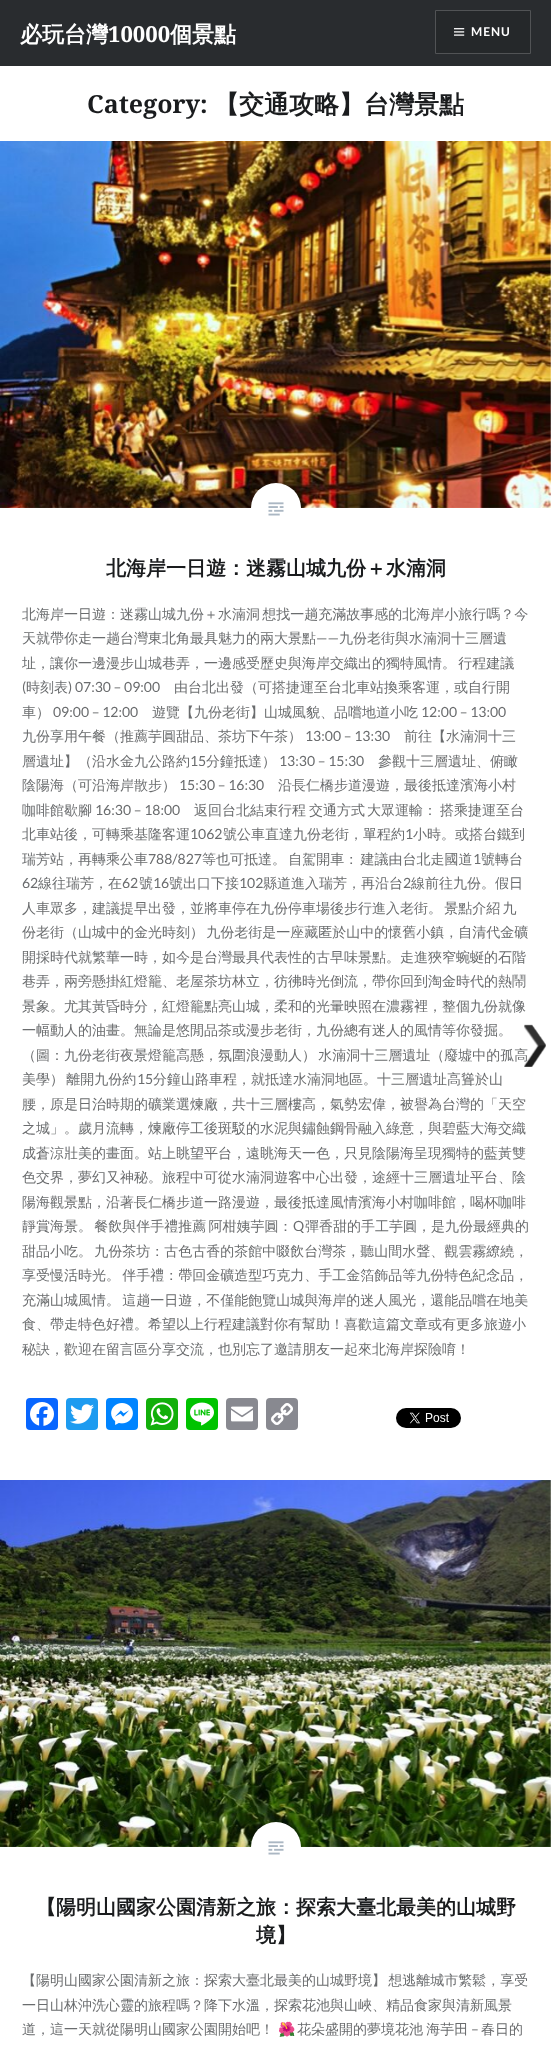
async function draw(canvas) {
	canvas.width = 551;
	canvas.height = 2049;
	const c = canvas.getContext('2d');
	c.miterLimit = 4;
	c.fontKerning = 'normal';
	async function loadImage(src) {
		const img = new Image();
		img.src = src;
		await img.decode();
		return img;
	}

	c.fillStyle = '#fff';
	c.fillRect(0, 0, 551, 2049);
	c.fillStyle = '#292c2f';
	c.fillRect(0, 0, 551, 66);
	c.font = 'bold 22px WenQuanYi Zen Hei';
	c.fillStyle = '#fff';
	c.fillText('必玩台灣', 20, 42);
	c.font = 'bold 22px Noto Serif';
	c.fillText('10000', 108, 42);
	c.font = 'bold 22px WenQuanYi Zen Hei';
	c.fillText('個景點', 170, 42);
	c.fillStyle = '#25282a';
	c.beginPath();
	c.rect(435.5, 10.5, 95, 43);
	c.fill();
	c.strokeStyle = '#515355';
	c.stroke();
	c.drawImage(await loadImage('img1.png'), 454, 28, 11, 8);
	c.letterSpacing = '1px';
	c.font = 'bold 12px Lato';
	c.fillStyle = '#fff';
	c.fillText('MENU', 471, 36);
	c.letterSpacing = '0px';
	c.font = 'bold 25px Noto Serif';
	c.fillStyle = '#1a1c1e';
	c.fillText('Category:', 87, 113);
	c.font = 'bold 25px WenQuanYi Zen Hei';
	c.fillText('【交通攻略】台灣景點', 214, 113);
	c.drawImage(await loadImage('img2.png'), 0, 141, 551, 367);
	c.fillStyle = '#fff';
	c.beginPath();
	c.arc(276, 508, 25, 0, 2 * Math.PI);
	c.fill();
	c.drawImage(await loadImage('img3.png'), 268, 502, 16, 14);
	c.font = 'bold 20px WenQuanYi Zen Hei';
	c.fillStyle = '#1a1c1e';
	c.fillText('北海岸一日遊：迷霧山城九份＋水湳洞', 106, 575);
	c.wordSpacing = '-2px';
	c.font = '500 14px WenQuanYi Zen Hei';
	c.fillStyle = '#6a6c6e';
	c.fillText('北海岸一日遊：迷霧山城九份＋水湳洞 想找一趟充滿故事感的北海岸小旅行嗎？今', 22, 619);
	c.wordSpacing = '0px';
	c.fillText('天就帶你走一趟台灣東北角最具魅力的兩大景點', 22, 643);
	c.font = '14px Lato';
	c.fillText('——', 316, 643);
	c.font = '500 14px WenQuanYi Zen Hei';
	c.fillText('九份老街與水湳洞十三層遺', 339, 643);
	c.wordSpacing = '-2px';
	c.fillText('址，讓你一邊漫步山城巷弄，一邊感受歷史與海岸交織出的獨特風情。 行程建議', 22, 668);
	c.wordSpacing = '0px';
	c.font = '14px Lato';
	c.fillText('(', 22, 692);
	c.font = '500 14px WenQuanYi Zen Hei';
	c.fillText('時刻表', 26, 692);
	c.font = '14px Lato';
	c.fillText(') 07:30 – 09:00', 68, 692);
	c.font = '500 14px WenQuanYi Zen Hei';
	c.fillText('由台北出發（可搭捷運至台北車站換乘客運，或自行開', 174, 692);
	c.fillText('車）', 22, 717);
	c.font = '14px Lato';
	c.fillText('09:00 – 12:00', 53, 717);
	c.font = '500 14px WenQuanYi Zen Hei';
	c.fillText('遊覽【九份老街】山城風貌、品嚐地道小吃', 152, 717);
	c.font = '14px Lato';
	c.fillText('12:00 – 13:00', 421, 717);
	c.font = '500 14px WenQuanYi Zen Hei';
	c.fillText('九份享用午餐（推薦芋圓甜品、茶坊下午茶）', 22, 741);
	c.font = '14px Lato';
	c.fillText('13:00 – 13:30', 305, 741);
	c.font = '500 14px WenQuanYi Zen Hei';
	c.fillText('前往【水湳洞十三', 404, 741);
	c.fillText('層遺址】（沿水金九公路約', 22, 766);
	c.font = '14px Lato';
	c.fillText('15', 190, 766);
	c.font = '500 14px WenQuanYi Zen Hei';
	c.fillText('分鐘抵達）', 206, 766);
	c.font = '14px Lato';
	c.fillText('13:30 – 15:30', 279, 766);
	c.font = '500 14px WenQuanYi Zen Hei';
	c.fillText('參觀十三層遺址、俯瞰', 378, 766);
	c.fillText('陰陽海（可沿海岸散步）', 22, 790);
	c.font = '14px Lato';
	c.fillText('15:30 – 16:30', 179, 790);
	c.font = '500 14px WenQuanYi Zen Hei';
	c.fillText('沿長仁橋步道漫遊，最後抵達濱海小村', 278, 790);
	c.fillText('咖啡館歇腳', 22, 815);
	c.font = '14px Lato';
	c.fillText('16:30 – 18:00', 95, 815);
	c.font = '500 14px WenQuanYi Zen Hei';
	for (const [text, x, y] of [
		['返回台北結束行程', 194, 815],
		['交通方式', 309, 815],
		['大眾運輸：', 367, 815],
		['搭乘捷運至台', 440, 815],
		['北車站後，可轉乘基隆客運', 22, 839],
	]) {
		c.fillText(text, x, y);
	}
	c.font = '14px Lato';
	c.fillText('1062', 190, 839);
	c.font = '500 14px WenQuanYi Zen Hei';
	c.fillText('號公車直達九份老街，單程約', 223, 839);
	c.font = '14px Lato';
	c.fillText('1', 405, 839);
	c.font = '500 14px WenQuanYi Zen Hei';
	c.fillText('小時。或搭台鐵到', 413, 839);
	c.fillText('瑞芳站，再轉乘公車', 22, 864);
	c.font = '14px Lato';
	c.fillText('788/827', 148, 864);
	c.wordSpacing = '-2px';
	c.font = '500 14px WenQuanYi Zen Hei';
	c.fillText('等也可抵達。 自駕開車： 建議由台北走國道', 202, 864);
	c.wordSpacing = '0px';
	c.font = '14px Lato';
	c.fillText('1', 473, 864);
	c.font = '500 14px WenQuanYi Zen Hei';
	c.fillText('號轉台', 481, 864);
	c.font = '14px Lato';
	c.fillText('62', 22, 888);
	c.font = '500 14px WenQuanYi Zen Hei';
	c.fillText('線往瑞芳，在', 38, 888);
	c.font = '14px Lato';
	c.fillText('62', 122, 888);
	c.font = '500 14px WenQuanYi Zen Hei';
	c.fillText('號', 139, 888);
	c.font = '14px Lato';
	c.fillText('16', 153, 888);
	c.font = '500 14px WenQuanYi Zen Hei';
	c.fillText('號出口下接', 169, 888);
	c.font = '14px Lato';
	c.fillText('102', 239, 888);
	c.font = '500 14px WenQuanYi Zen Hei';
	c.fillText('縣道進入瑞芳，再沿台', 263, 888);
	c.font = '14px Lato';
	c.fillText('2', 403, 888);
	c.font = '500 14px WenQuanYi Zen Hei';
	c.fillText('線前往九份。假日', 411, 888);
	c.wordSpacing = '-2px';
	c.fillText('人車眾多，建議提早出發，並將車停在九份停車場後步行進入老街。 景點介紹 九', 22, 913);
	c.fillText('份老街（山城中的金光時刻） 九份老街是一座藏匿於山中的懷舊小鎮，自清代金礦', 22, 937);
	c.wordSpacing = '0px';
	for (const [text, x, y] of [
		['開採時代就繁華一時，如今是台灣最具代表性的古早味景點。走進狹窄蜿蜒的石階', 22, 962],
		['巷弄，兩旁懸掛紅燈籠、老屋茶坊林立，彷彿時光倒流，帶你回到淘金時代的熱鬧', 22, 986],
		['景象。尤其黃昏時分，紅燈籠點亮山城，柔和的光暈映照在濃霧裡，整個九份就像', 22, 1011],
		['一幅動人的油畫。無論是悠閒品茶或漫步老街，九份總有迷人的風情等你發掘。', 22, 1035],
	]) {
		c.fillText(text, x, y);
	}
	c.wordSpacing = '-2px';
	c.fillText('（圖：九份老街夜景燈籠高懸，氛圍浪漫動人） 水湳洞十三層遺址（廢墟中的孤高', 22, 1060);
	c.fillText('美學） 離開九份約', 22, 1084);
	c.wordSpacing = '0px';
	c.font = '14px Lato';
	c.fillText('15', 137, 1084);
	c.font = '500 14px WenQuanYi Zen Hei';
	for (const [text, x, y] of [
		['分鐘山路車程，就抵達水湳洞地區。十三層遺址高聳於山', 153, 1084],
		['腰，原是日治時期的礦業選煉廠，共十三層樓高，氣勢宏偉，被譽為台灣的「天空', 22, 1109],
		['之城」。歲月流轉，煉廠停工後斑駁的水泥與鏽蝕鋼骨融入綠意，與碧藍大海交織', 22, 1133],
		['成蒼涼壯美的畫面。站上眺望平台，遠眺海天一色，只見陰陽海呈現獨特的藍黃雙', 22, 1158],
		['色交界，夢幻又神秘。旅程中可從水湳洞遊客中心出發，途經十三層遺址平台、陰', 22, 1182],
		['陽海觀景點，沿著長仁橋步道一路漫遊，最後抵達風情濱海小村咖啡館，喝杯咖啡', 22, 1207],
	]) {
		c.fillText(text, x, y);
	}
	c.wordSpacing = '-2px';
	c.fillText('靜賞海景。 餐飲與伴手禮推薦 阿柑姨芋圓：', 22, 1231);
	c.wordSpacing = '0px';
	c.font = '14px Lato';
	c.fillText('Q', 293, 1231);
	c.font = '500 14px WenQuanYi Zen Hei';
	c.fillText('彈香甜的手工芋圓，是九份最經典的', 305, 1231);
	c.wordSpacing = '-2px';
	for (const [text, x, y] of [
		['甜品小吃。 九份茶坊：古色古香的茶館中啜飲台灣茶，聽山間水聲、觀雲霧繚繞，', 22, 1256],
		['享受慢活時光。 伴手禮：帶回金礦造型巧克力、手工金箔飾品等九份特色紀念品，', 22, 1280],
		['充滿山城風情。 這趟一日遊，不僅能飽覽山城與海岸的迷人風光，還能品嚐在地美', 22, 1305],
	]) {
		c.fillText(text, x, y);
	}
	c.wordSpacing = '0px';
	c.fillText('食、帶走特色好禮。希望以上行程建議對你有幫助！喜歡這篇文章或有更多旅遊小', 22, 1329);
	c.fillText('秘訣，歡迎在留言區分享交流，也別忘了邀請朋友一起來北海岸探險唷！', 22, 1354);
	c.fillStyle = '#0866ff';
	c.beginPath();
	c.roundRect(26, 1398, 32, 32, 4);
	c.fill();
	c.drawImage(await loadImage('img4.png'), 30, 1402, 24, 24);
	c.fillStyle = '#1d9bf0';
	c.beginPath();
	c.roundRect(66, 1398, 32, 32, 4);
	c.fill();
	c.drawImage(await loadImage('img5.png'), 70, 1404, 24, 20);
	c.fillStyle = '#0084ff';
	c.beginPath();
	c.roundRect(106, 1398, 32, 32, 4);
	c.fill();
	c.drawImage(await loadImage('img6.png'), 111, 1403, 22, 22);
	c.fillStyle = '#12af0a';
	c.beginPath();
	c.roundRect(146, 1398, 32, 32, 4);
	c.fill();
	c.drawImage(await loadImage('img7.png'), 150, 1402, 24, 24);
	c.fillStyle = '#00c300';
	c.beginPath();
	c.roundRect(186, 1398, 32, 32, 4);
	c.fill();
	c.drawImage(await loadImage('img8.png'), 190, 1402, 24, 24);
	c.fillStyle = '#888990';
	c.beginPath();
	c.roundRect(226, 1398, 32, 32, 4);
	c.fill();
	c.drawImage(await loadImage('img9.png'), 231, 1406, 22, 16);
	c.beginPath();
	c.roundRect(266, 1398, 32, 32, 4);
	c.fill();
	c.drawImage(await loadImage('img10.png'), 271, 1403, 22, 22);
	c.drawImage(await loadImage('img11.png'), 396, 1408, 65, 20);
	c.drawImage(await loadImage('img12.png'), 0, 1480, 551, 367);
	c.fillStyle = '#fff';
	c.beginPath();
	c.arc(276, 1847, 25, 0, 2 * Math.PI);
	c.fill();
	c.drawImage(await loadImage('img3.png'), 268, 1841, 16, 14);
	c.font = 'bold 20px WenQuanYi Zen Hei';
	c.fillStyle = '#1a1c1e';
	c.fillText('【陽明山國家公園清新之旅：探索大臺北最美的山城野', 36, 1914);
	c.fillText('境】', 256, 1942);
	c.wordSpacing = '-2px';
	c.font = '500 14px WenQuanYi Zen Hei';
	c.fillStyle = '#6a6c6e';
	c.fillText('【陽明山國家公園清新之旅：探索大臺北最美的山城野境】 想逃離城市繁鬆，享受', 22, 1985);
	c.wordSpacing = '0px';
	c.fillText('一日山林沖洗心靈的旅程嗎？降下水溫，探索花池與山峽、精品食家與清新風景', 22, 2010);
	c.fillText('道，這一天就從陽明山國家公園開始吧！', 22, 2034);
	c.font = '14px Noto Color Emoji';
	c.fillText('🌺', 278, 2034);
	c.wordSpacing = '-1px';
	c.font = '500 14px WenQuanYi Zen Hei';
	c.fillText('花朵盛開的夢境花池 海芋田', 297, 2034);
	c.wordSpacing = '0px';
	c.font = '14px Lato';
	c.fillText('–', 471, 2034);
	c.font = '500 14px WenQuanYi Zen Hei';
	c.fillText('春日的', 481, 2034);
	c.drawImage(await loadImage('img13.png'), 524, 1024, 22, 43);
}

draw(document.querySelector('canvas'));
